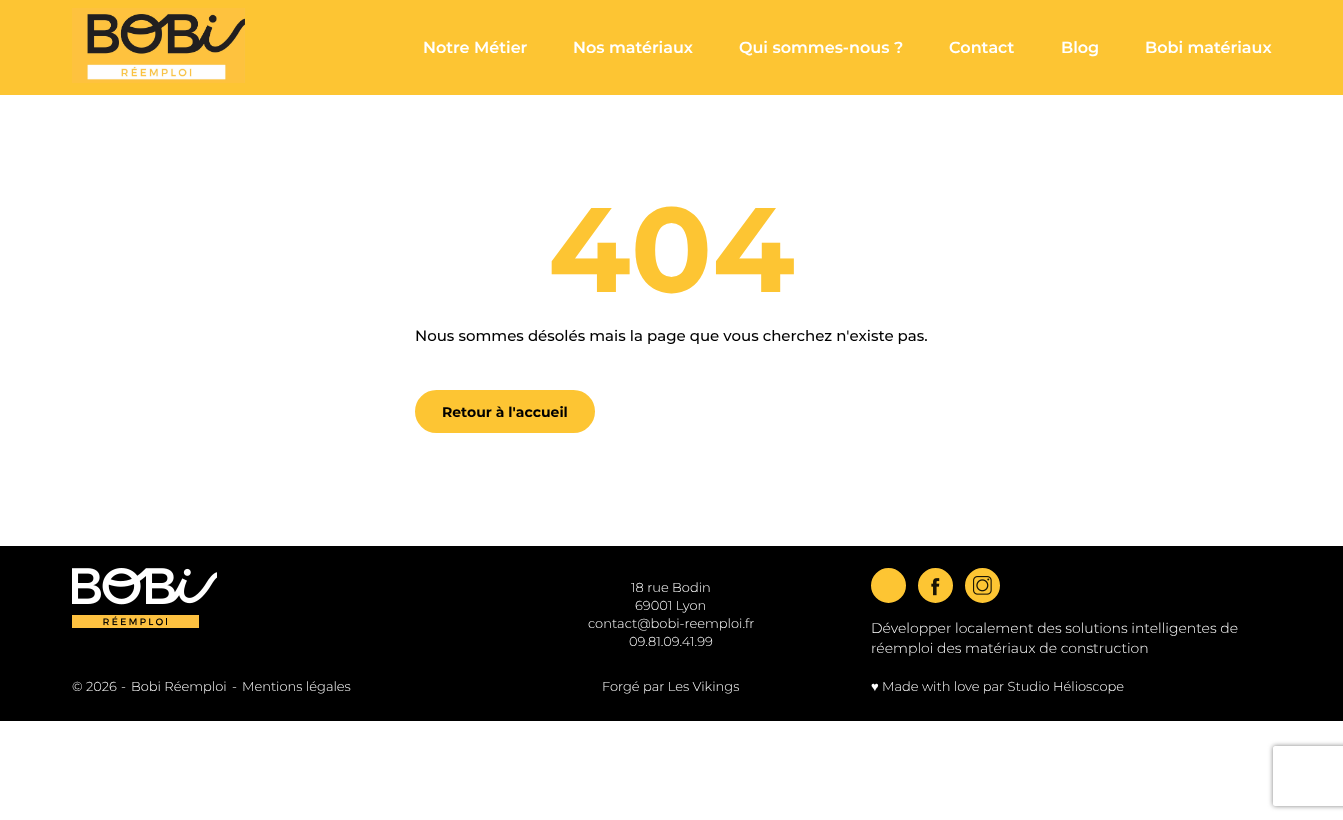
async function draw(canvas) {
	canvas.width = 1343;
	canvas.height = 820;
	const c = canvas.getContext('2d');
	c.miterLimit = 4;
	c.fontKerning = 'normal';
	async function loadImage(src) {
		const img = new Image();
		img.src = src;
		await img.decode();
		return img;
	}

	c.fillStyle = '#fff';
	c.fillRect(0, 0, 1343, 820);
	c.fillStyle = '#fdc533';
	c.fillRect(0, 0, 1343, 95);
	c.drawImage(await loadImage('img1.png'), 72, 8, 173, 75);
	c.font = '100 16px "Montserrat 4"';
	c.fillStyle = '#fff';
	for (const [text, x, y] of [
		['Notre Métier', 423, 53],
		['Nos matériaux', 573, 53],
		['Qui sommes-nous ?', 739, 53],
		['Contact', 949, 53],
		['Blog', 1061, 53],
		['Bobi matériaux', 1145, 53],
	]) {
		c.fillText(text, x, y);
	}
	c.font = '100 120px Montserrat';
	c.fillStyle = '#fdc533';
	c.fillText('404', 548, 292);
	c.font = '100 15px "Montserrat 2"';
	c.fillStyle = '#000';
	c.fillText('Nous sommes désolés mais la page que vous cherchez n\'existe pas.', 415, 341);
	c.fillStyle = '#fdc533';
	c.beginPath();
	c.roundRect(416, 391, 178, 41, 20.5);
	c.fill();
	c.strokeStyle = '#fdc533';
	c.lineWidth = 2;
	c.stroke();
	c.font = '100 14px Montserrat';
	c.fillStyle = '#000';
	c.fillText('Retour à l\'accueil', 442, 417);
	c.fillRect(0, 546, 1343, 175);
	c.drawImage(await loadImage('img2.png'), 72, 568, 145, 60);
	c.font = '100 13px "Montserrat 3"';
	c.fillStyle = '#fff';
	for (const [text, x, y] of [
		['18 rue Bodin', 631, 592],
		['69001 Lyon', 635, 610],
		['contact@bobi-reemploi.fr', 588, 628],
		['09.81.09.41.99', 629, 646],
	]) {
		c.fillText(text, x, y);
	}
	c.fillStyle = '#fdc533';
	c.beginPath();
	c.arc(888.5, 585.5, 16.5, 0, 2 * Math.PI);
	c.fill();
	c.stroke();
	c.beginPath();
	c.arc(935.5, 585.5, 16.5, 0, 2 * Math.PI);
	c.fill();
	c.stroke();
	c.drawImage(await loadImage('img3.png'), 931, 578, 9, 18);
	c.beginPath();
	c.arc(982.5, 585.5, 16.5, 0, 2 * Math.PI);
	c.fill();
	c.stroke();
	c.drawImage(await loadImage('img4.png'), 973, 576, 19, 19);
	c.font = '100 14px "Montserrat 3"';
	c.fillStyle = '#fff';
	c.fillText('Développer localement des solutions intelligentes de', 871, 633);
	c.fillText('réemploi des matériaux de construction', 871, 653);
	c.font = '100 13px "Montserrat 3"';
	for (const [text, x, y] of [
		['© 2026', 72, 691],
		['-', 121, 691],
		['Bobi Réemploi', 131, 691],
		['-', 232, 691],
		['Mentions légales', 242, 691],
		['Forgé par Les Vikings', 602, 691],
	]) {
		c.fillText(text, x, y);
	}
	c.font = '13px Liberation Sans';
	c.fillText('♥', 871, 691);
	c.font = '100 13px "Montserrat 3"';
	c.fillText('Made with love par Studio Hélioscope', 882, 691);
	c.save();
	c.beginPath();
	c.moveTo(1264, 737);
	c.lineTo(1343, 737);
	c.lineTo(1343, 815);
	c.lineTo(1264, 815);
	c.closePath();
	c.moveTo(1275, 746);
	c.lineTo(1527, 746);
	c.bezierCurveTo(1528, 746, 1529, 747, 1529, 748);
	c.lineTo(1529, 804);
	c.bezierCurveTo(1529, 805, 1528, 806, 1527, 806);
	c.lineTo(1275, 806);
	c.bezierCurveTo(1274, 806, 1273, 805, 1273, 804);
	c.lineTo(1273, 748);
	c.bezierCurveTo(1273, 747, 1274, 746, 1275, 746);
	c.closePath();
	c.clip('evenodd');
	c.fillStyle = '#808080';
	c.filter = 'blur(2.5px)';
	c.beginPath();
	c.roundRect(1273, 746, 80, 60, 2);
	c.fill();
	c.filter = 'none';
	c.restore();
}

draw(document.querySelector('canvas'));
